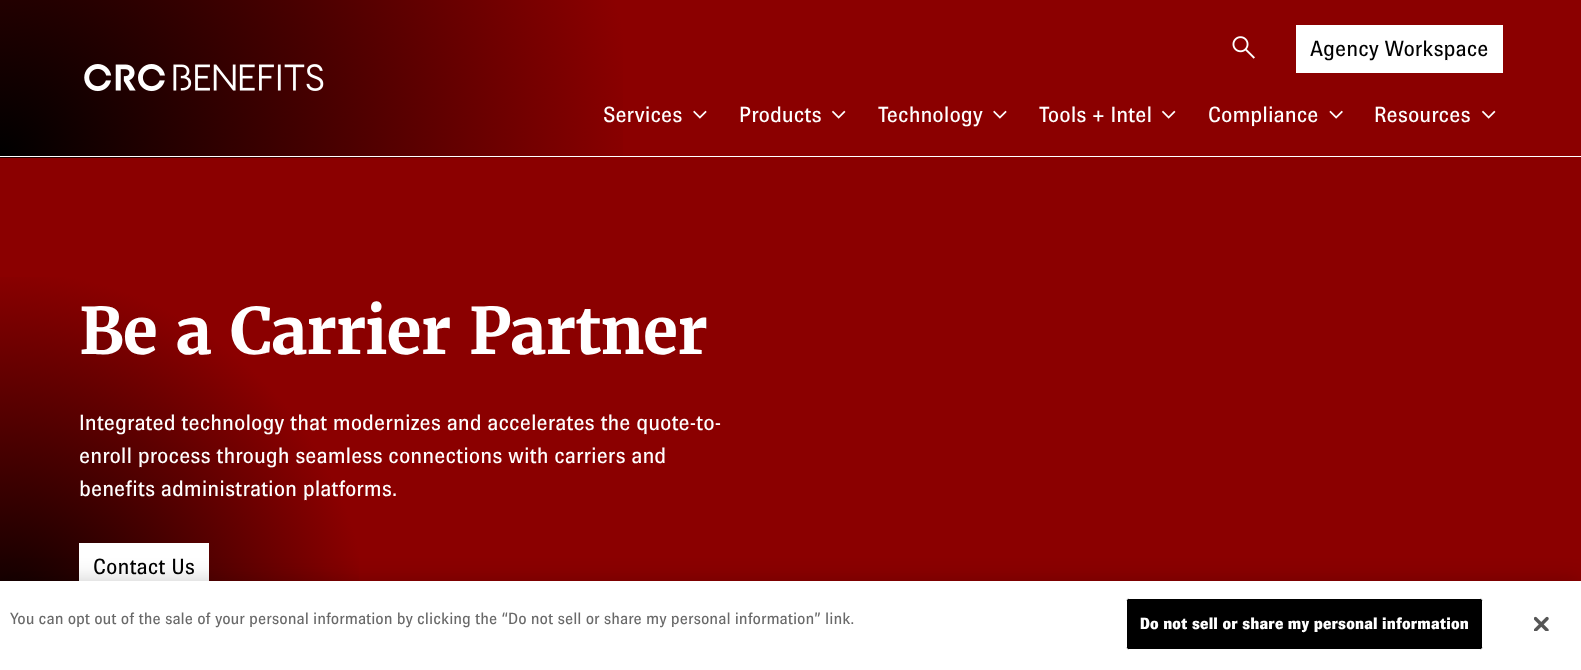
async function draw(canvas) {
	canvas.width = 1581;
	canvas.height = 670;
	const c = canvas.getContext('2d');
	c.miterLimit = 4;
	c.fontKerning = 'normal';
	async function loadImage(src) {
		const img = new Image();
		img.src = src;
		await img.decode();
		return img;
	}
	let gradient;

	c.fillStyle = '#8b0000';
	c.fillRect(0, 0, 1581, 670);
	gradient = c.createRadialGradient(0, 156, 0, 0, 156, 1589);
	gradient.addColorStop(0, '#000');
	gradient.addColorStop(0.4, '#8b0000');
	c.fillStyle = gradient;
	c.fillRect(0, 0, 623, 156);
	gradient = c.createRadialGradient(0, 313, 0, 0, 313, 1589);
	gradient.addColorStop(0, '#000');
	gradient.addColorStop(0.4, '#8b0000');
	c.fillStyle = gradient;
	c.fillRect(0, 157, 603, 1);
	c.fillStyle = '#fff';
	c.fillRect(0, 156, 1581, 1);
	c.drawImage(await loadImage('img1.png'), 84, 64, 240, 28);
	c.drawImage(await loadImage('img2.png'), 1232, 36, 23, 23);
	c.fillRect(1296, 25, 207, 48);
	c.font = '500 22.05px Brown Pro';
	c.fillStyle = '#000';
	c.fillText('Agency Workspace', 1310, 56);
	c.fillStyle = '#fff';
	c.fillText('Services', 603, 122);
	c.drawImage(await loadImage('img3.png'), 693, 110, 14, 9);
	c.fillText('Products', 739, 122);
	c.drawImage(await loadImage('img4.png'), 831, 110, 15, 9);
	c.fillText('Technology', 878, 122);
	c.drawImage(await loadImage('img3.png'), 993, 110, 14, 9);
	c.fillText('Tools + Intel', 1039, 122);
	c.drawImage(await loadImage('img4.png'), 1161, 110, 15, 9);
	c.fillText('Compliance', 1208, 122);
	c.drawImage(await loadImage('img5.png'), 1329, 110, 14, 9);
	c.fillText('Resources', 1374, 122);
	c.drawImage(await loadImage('img4.png'), 1481, 110, 15, 9);
	gradient = c.createRadialGradient(0, 641, 0, 0, 641, 927);
	gradient.addColorStop(0, '#000');
	gradient.addColorStop(0.4, '#8b0000');
	c.fillStyle = gradient;
	c.fillRect(0, 277, 359, 304);
	c.letterSpacing = '-1.25px';
	c.font = 'bold 64px Merriweather';
	c.fillStyle = '#fff';
	c.fillText('Be a Carrier Partner', 79, 354);
	c.letterSpacing = '0px';
	c.font = '500 22.05px Brown Pro';
	for (const [text, x, y] of [
		['Integrated technology that modernizes and accelerates the quote-to-', 79, 430],
		['enroll process through seamless connections with carriers and', 79, 463],
		['benefits administration platforms.', 79, 496],
	]) {
		c.fillText(text, x, y);
	}
	c.fillRect(79, 543, 130, 38);
	c.fillStyle = '#000';
	c.fillText('Contact Us', 93, 574);
	c.fillStyle = '#00000033';
	c.filter = 'blur(11px)';
	c.beginPath();
	c.rect(0, 581, 1581, 89);
	c.fill();
	c.filter = 'none';
	c.fillStyle = '#fff';
	c.fillRect(0, 581, 1581, 89);
	c.font = '500 16.25px Brown Pro';
	c.fillStyle = '#696969';
	c.fillText('You can opt out of the sale of your personal information by clicking the “Do not sell or share my personal information” link.', 10, 624);
	c.fillStyle = '#000';
	c.beginPath();
	c.roundRect(1126.5, 598.5, 356, 51, 2);
	c.fill();
	c.strokeStyle = '#fff';
	c.stroke();
	c.letterSpacing = '0.15px';
	c.font = '800 16.25px Brown Pro';
	c.fillStyle = '#fff';
	c.fillText('Do not sell or share my personal information', 1140, 629);
	c.drawImage(await loadImage('img6.png'), 1534, 616, 15, 15);
}

draw(document.querySelector('canvas'));
